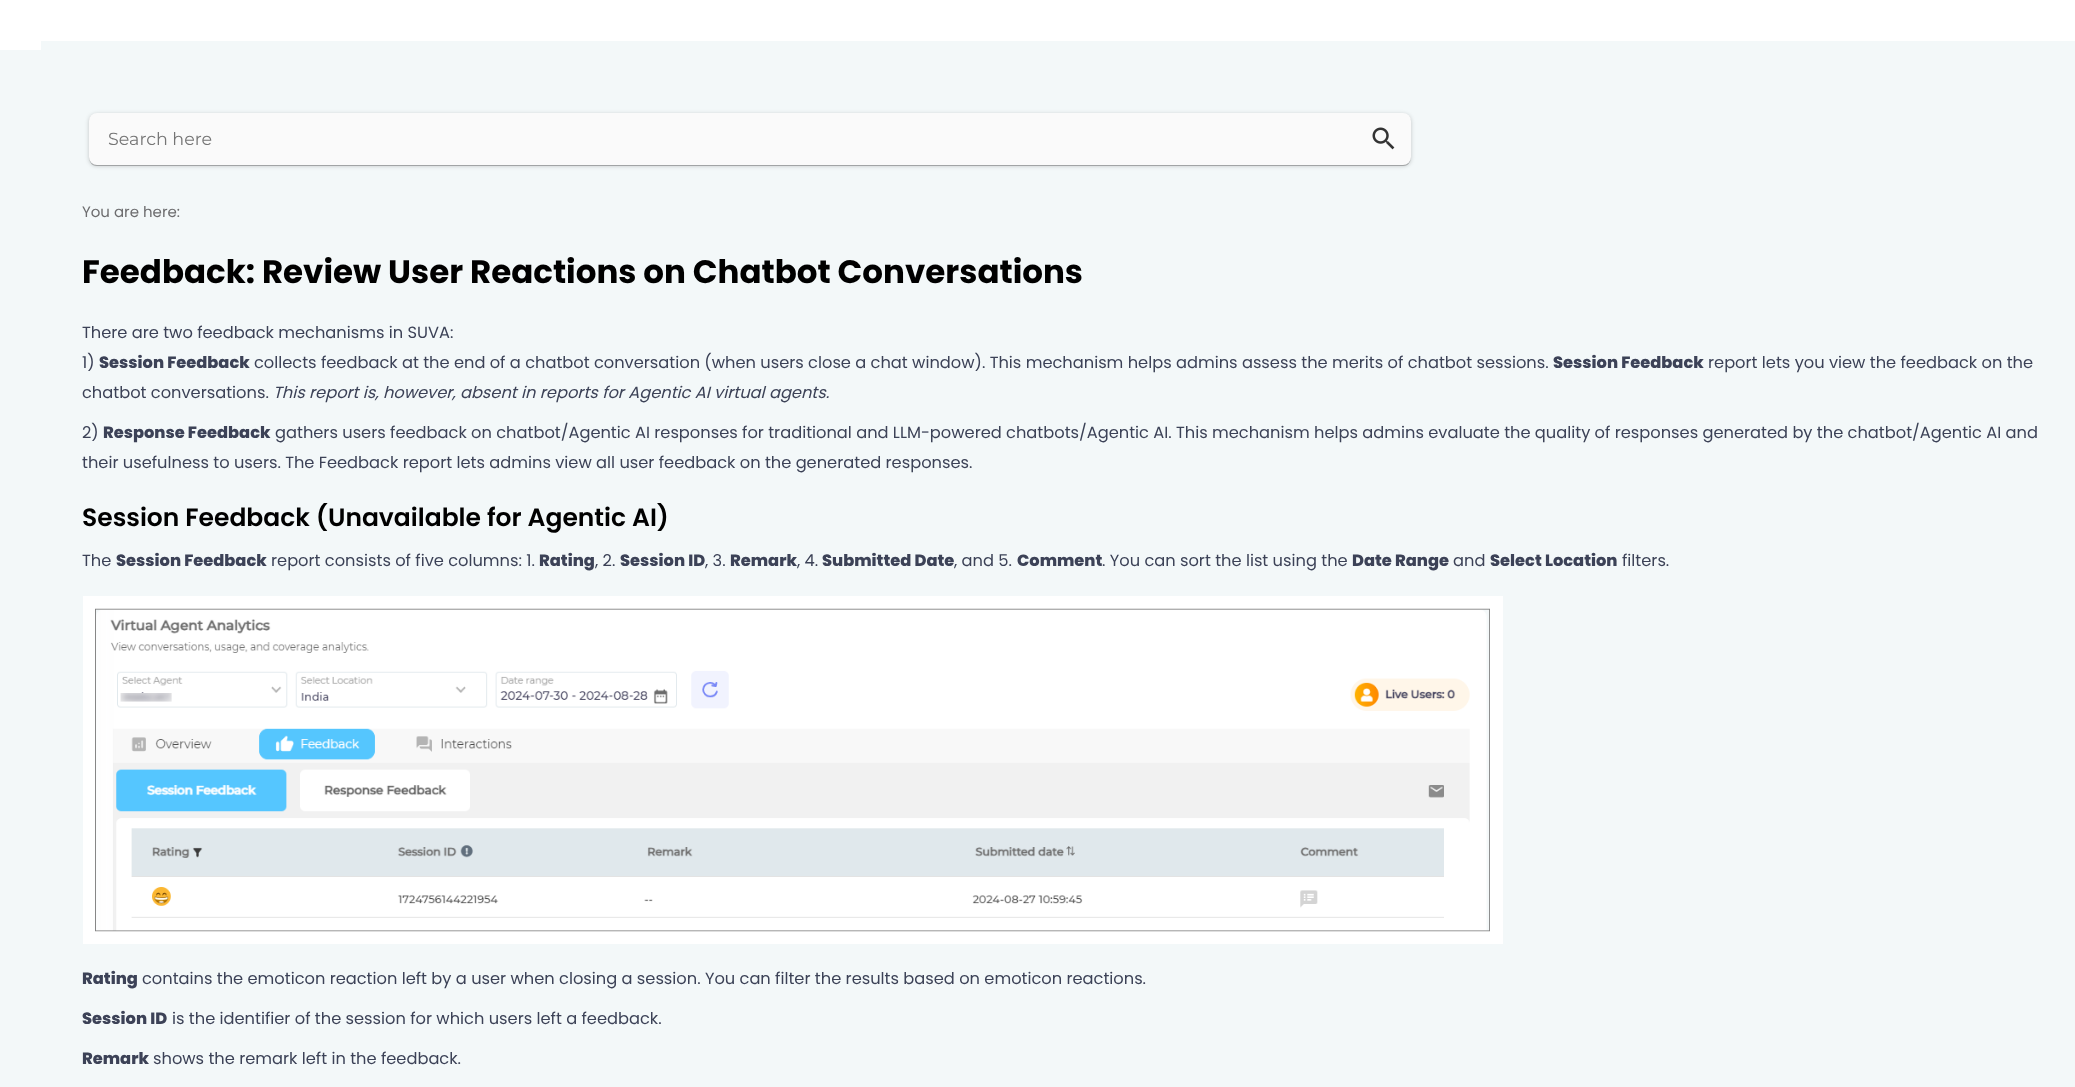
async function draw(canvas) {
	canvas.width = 2075;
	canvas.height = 1087;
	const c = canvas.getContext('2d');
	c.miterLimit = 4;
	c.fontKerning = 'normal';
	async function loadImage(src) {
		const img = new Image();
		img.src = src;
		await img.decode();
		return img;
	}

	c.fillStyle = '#fff';
	c.fillRect(0, 0, 2075, 1087);
	c.fillStyle = '#f3f8f9';
	c.fillRect(0, 50, 41, 1037);
	c.fillRect(41, 41, 2034, 1046);
	c.fillStyle = '#0000001f';
	c.filter = 'blur(0.5px)';
	c.beginPath();
	c.roundRect(90, 116, 1320, 50, 6);
	c.fill();
	c.filter = 'none';
	c.fillStyle = '#00000024';
	c.filter = 'blur(0.5px)';
	c.beginPath();
	c.roundRect(89, 114, 1322, 52, 8);
	c.fill();
	c.filter = 'none';
	c.fillStyle = '#00000033';
	c.filter = 'blur(2px)';
	c.beginPath();
	c.roundRect(89, 114, 1322, 52, 8);
	c.fill();
	c.filter = 'none';
	c.fillStyle = '#fafafa';
	c.beginPath();
	c.roundRect(89, 113, 1322, 52, 8);
	c.fill();
	c.font = '17.5px Montserrat';
	c.fillStyle = '#757575';
	c.fillText('Search here', 108, 145);
	c.drawImage(await loadImage('img1.png'), 1372, 127, 23, 23);
	c.font = '15px Poppins';
	c.fillStyle = '#6d6d6f';
	c.fillText('You are here:', 82, 217);
	c.font = 'bold 32.5px Poppins';
	c.fillStyle = '#000';
	c.fillText('Feedback: Review User Reactions on Chatbot Conversations', 82, 283);
	c.font = '16.25px Poppins';
	c.fillStyle = '#3c4257';
	c.fillText('There are two feedback mechanisms in SUVA:', 82, 338);
	c.fillText('1)', 82, 368);
	c.font = '800 16.25px Poppins';
	c.fillText('Session Feedback', 99, 368);
	c.font = '16.25px Poppins';
	c.fillText('collects feedback at the end of a chatbot conversation (when users close a chat window). This mechanism helps admins assess the merits of chatbot sessions.', 254, 368);
	c.font = '800 16.25px Poppins';
	c.fillText('Session Feedback', 1553, 368);
	c.font = '16.25px Poppins';
	c.fillText('report lets you view the feedback on the', 1708, 368);
	c.fillText('chatbot conversations.', 82, 398);
	c.font = 'italic 16.25px Poppins';
	c.fillText('This report is, however, absent in reports for Agentic AI virtual agents.', 273, 398);
	c.font = '16.25px Poppins';
	c.fillText('2)', 82, 438);
	c.font = '800 16.25px Poppins';
	c.fillText('Response Feedback', 103, 438);
	c.font = '16.25px Poppins';
	c.fillText('gathers users feedback on chatbot/Agentic AI responses for traditional and LLM-powered chatbots/Agentic AI. This mechanism helps admins evaluate the quality of responses generated by the chatbot/Agentic AI and', 275, 438);
	c.fillText('their usefulness to users. The Feedback report lets admins view all user feedback on the generated responses.', 82, 468);
	c.font = '600 25px Poppins';
	c.fillStyle = '#000';
	c.fillText('Session Feedback (Unavailable for Agentic AI)', 82, 526);
	c.font = '16.25px Poppins';
	c.fillStyle = '#3c4257';
	c.fillText('The', 82, 566);
	c.font = '800 16.25px Poppins';
	c.fillText('Session Feedback', 116, 566);
	c.font = '16.25px Poppins';
	c.fillText('report consists of five columns: 1.', 271, 566);
	c.font = '800 16.25px Poppins';
	c.fillText('Rating', 539, 566);
	c.font = '16.25px Poppins';
	c.fillText(', 2.', 595, 566);
	c.font = '800 16.25px Poppins';
	c.fillText('Session ID', 620, 566);
	c.font = '16.25px Poppins';
	c.fillText(', 3.', 705, 566);
	c.font = '800 16.25px Poppins';
	c.fillText('Remark', 730, 566);
	c.font = '16.25px Poppins';
	c.fillText(', 4.', 797, 566);
	c.font = '800 16.25px Poppins';
	c.fillText('Submitted Date', 822, 566);
	c.font = '16.25px Poppins';
	c.fillText(', and 5.', 954, 566);
	c.font = '800 16.25px Poppins';
	c.fillText('Comment', 1017, 566);
	c.font = '16.25px Poppins';
	c.fillText('. You can sort the list using the', 1102, 566);
	c.font = '800 16.25px Poppins';
	c.fillText('Date Range', 1352, 566);
	c.font = '16.25px Poppins';
	c.fillText('and', 1453, 566);
	c.font = '800 16.25px Poppins';
	c.fillText('Select Location', 1490, 566);
	c.font = '16.25px Poppins';
	c.fillText('filters.', 1622, 566);
	c.fillStyle = '#fff';
	c.fillRect(83, 596, 1420, 348);
	c.drawImage(await loadImage('img2.png'), 95, 608, 1395, 324);
	c.font = '800 16.25px Poppins';
	c.fillStyle = '#3c4257';
	c.fillText('Rating', 82, 984);
	c.font = '16.25px Poppins';
	c.fillText('contains the emoticon reaction left by a user when closing a session. You can filter the results based on emoticon reactions.', 142, 984);
	c.font = '800 16.25px Poppins';
	c.fillText('Session ID', 82, 1024);
	c.font = '16.25px Poppins';
	c.fillText('is the identifier of the session for which users left a feedback.', 172, 1024);
	c.font = '800 16.25px Poppins';
	c.fillText('Remark', 82, 1064);
	c.font = '16.25px Poppins';
	c.fillText('shows the remark left in the feedback.', 153, 1064);
}

draw(document.querySelector('canvas'));
